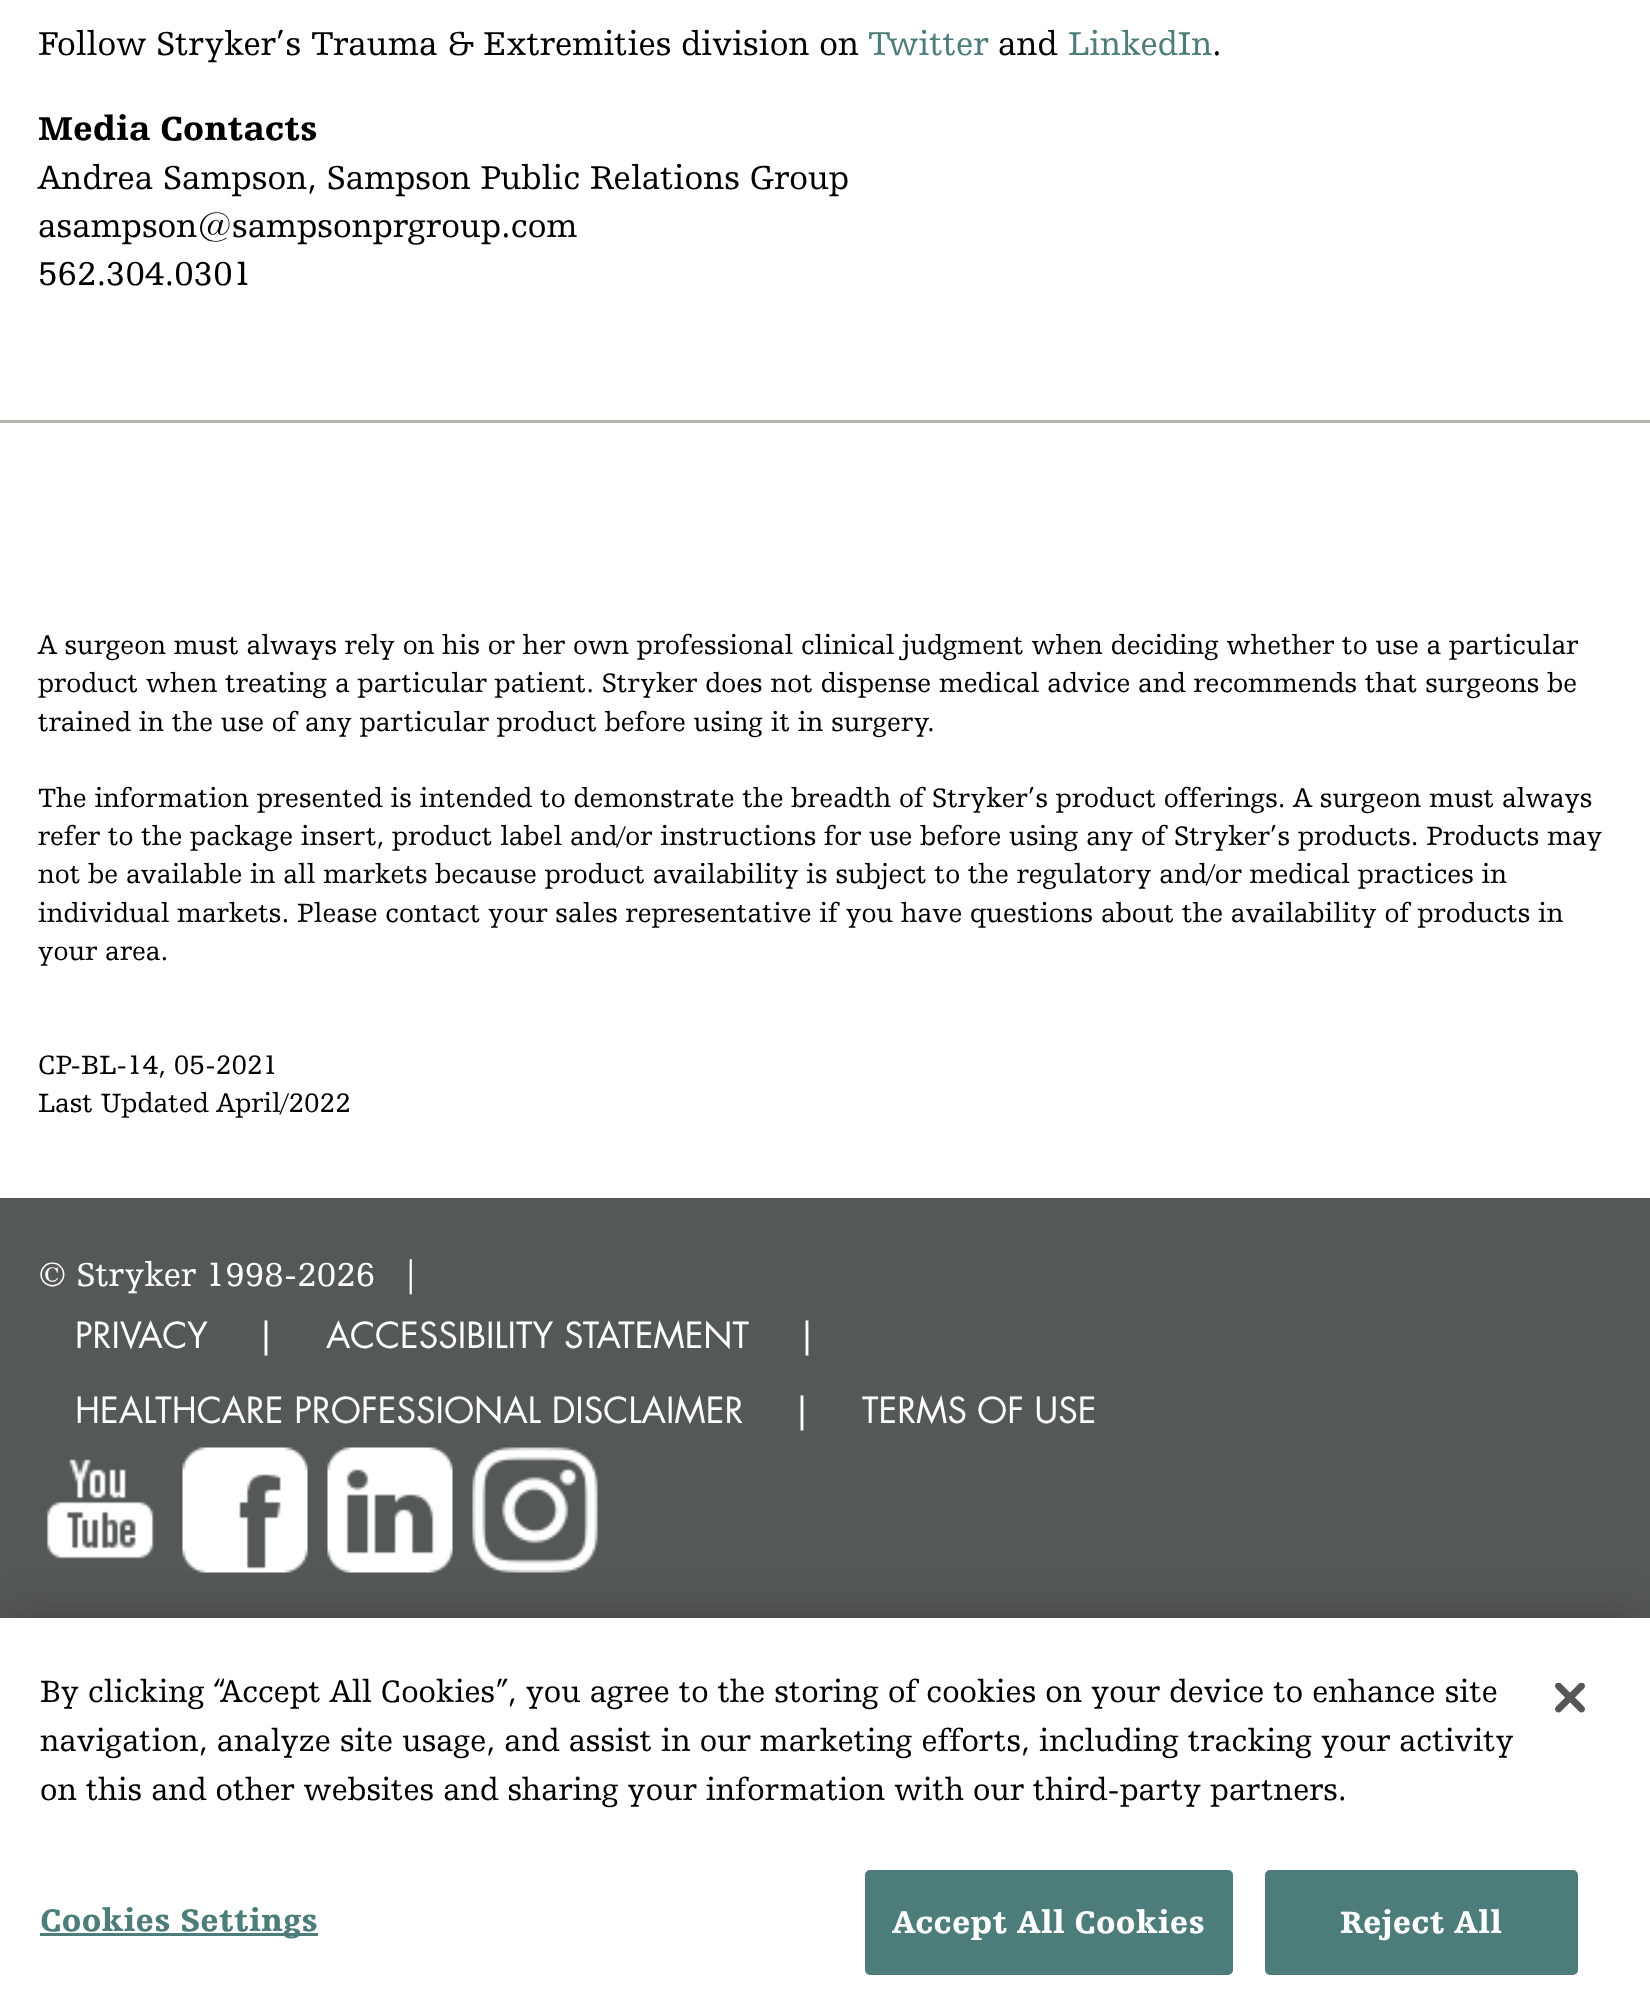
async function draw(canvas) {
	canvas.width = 1650;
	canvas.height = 2008;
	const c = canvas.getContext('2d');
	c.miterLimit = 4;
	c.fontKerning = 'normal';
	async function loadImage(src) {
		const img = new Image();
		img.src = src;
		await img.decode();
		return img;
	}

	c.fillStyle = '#fff';
	c.fillRect(0, 0, 1650, 2008);
	c.font = '35px "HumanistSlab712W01"';
	c.fillStyle = '#000';
	c.fillText('Follow Stryker’s Trauma & Extremities division on', 38, 55);
	c.fillStyle = '#4c7d7a';
	c.fillText('Twitter', 868, 55);
	c.fillStyle = '#000';
	c.fillText('and', 998, 55);
	c.fillStyle = '#4c7d7a';
	c.fillText('LinkedIn', 1068, 55);
	c.fillStyle = '#000';
	c.fillText('.', 1212, 55);
	c.font = '900 35px "HumanistSlab712W01"';
	c.fillText('Media Contacts', 38, 140);
	c.font = '35px "HumanistSlab712W01"';
	for (const [text, x, y] of [
		['Andrea Sampson, Sampson Public Relations Group', 38, 189],
		['asampson@sampsonprgroup.com', 38, 237],
		['562.304.0301', 38, 285],
	]) {
		c.fillText(text, x, y);
	}
	c.fillStyle = '#b2b4ae';
	c.fillRect(0, 420, 1650, 3);
	c.font = '28px "HumanistSlab712W01"';
	c.fillStyle = '#000';
	for (const [text, x, y] of [
		['A surgeon must always rely on his or her own professional clinical judgment when deciding whether to use a particular', 38, 654],
		['product when treating a particular patient. Stryker does not dispense medical advice and recommends that surgeons be', 38, 692],
		['trained in the use of any particular product before using it in surgery.', 38, 731],
		['The information presented is intended to demonstrate the breadth of Stryker’s product offerings. A surgeon must always', 38, 807],
		['refer to the package insert, product label and/or instructions for use before using any of Stryker’s products. Products may', 38, 845],
		['not be available in all markets because product availability is subject to the regulatory and/or medical practices in', 38, 883],
		['individual markets. Please contact your sales representative if you have questions about the availability of products in', 38, 922],
		['your area.', 38, 960],
		['CP-BL-14, 05-2021', 38, 1074],
		['Last Updated April/2022', 38, 1112],
	]) {
		c.fillText(text, x, y);
	}
	c.fillStyle = '#545857';
	c.fillRect(0, 1198, 1650, 420);
	c.font = '35px "HumanistSlab712W01"';
	c.fillStyle = '#fff';
	c.fillText('© Stryker 1998-2026', 38, 1286);
	c.fillText('|', 402, 1286);
	c.font = '35px Futura';
	for (const [text, x, y] of [
		['PRIVACY', 75, 1348],
		['|', 256, 1348],
		['ACCESSIBILITY STATEMENT', 326, 1348],
		['|', 797, 1348],
		['HEALTHCARE PROFESSIONAL DISCLAIMER', 75, 1423],
		['|', 792, 1423],
		['TERMS OF USE', 862, 1423],
	]) {
		c.fillText(text, x, y);
	}
	c.drawImage(await loadImage('img1.png'), 46, 1459, 108, 100);
	c.drawImage(await loadImage('img2.png'), 182, 1447, 126, 126);
	c.drawImage(await loadImage('img3.png'), 327, 1447, 126, 126);
	c.drawImage(await loadImage('img4.png'), 472, 1447, 126, 126);
	c.fillStyle = '#00000033';
	c.filter = 'blur(22.5px)';
	c.beginPath();
	c.rect(0, 1618, 1650, 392);
	c.fill();
	c.filter = 'none';
	c.fillStyle = '#fff';
	c.fillRect(0, 1618, 1650, 390);
	c.font = '32.5px "HumanistSlab712W01"';
	c.fillStyle = '#000';
	for (const [text, x, y] of [
		['By clicking “Accept All Cookies”, you agree to the storing of cookies on your device to enhance site', 40, 1702],
		['navigation, analyze site usage, and assist in our marketing efforts, including tracking your activity', 40, 1751],
		['on this and other websites and sharing your information with our third-party partners.', 40, 1800],
	]) {
		c.fillText(text, x, y);
	}
	c.fillStyle = '#4c7d7a';
	c.fillRect(40, 1933, 278, 3);
	c.letterSpacing = '0.3px';
	c.font = '900 32.5px "HumanistSlab712W01"';
	c.fillText('Cookies Settings', 40, 1931);
	c.beginPath();
	c.roundRect(866.5, 1871.5, 365, 102, 3.5);
	c.fill();
	c.strokeStyle = '#4c7d7a';
	c.lineWidth = 3;
	c.stroke();
	c.fillStyle = '#fff';
	c.fillText('Accept All Cookies', 892, 1933);
	c.fillStyle = '#4c7d7a';
	c.beginPath();
	c.roundRect(1266.5, 1871.5, 310, 102, 3.5);
	c.fill();
	c.stroke();
	c.fillStyle = '#fff';
	c.fillText('Reject All', 1340, 1933);
	c.drawImage(await loadImage('img5.png'), 1555, 1683, 30, 30);
}

draw(document.querySelector('canvas'));
